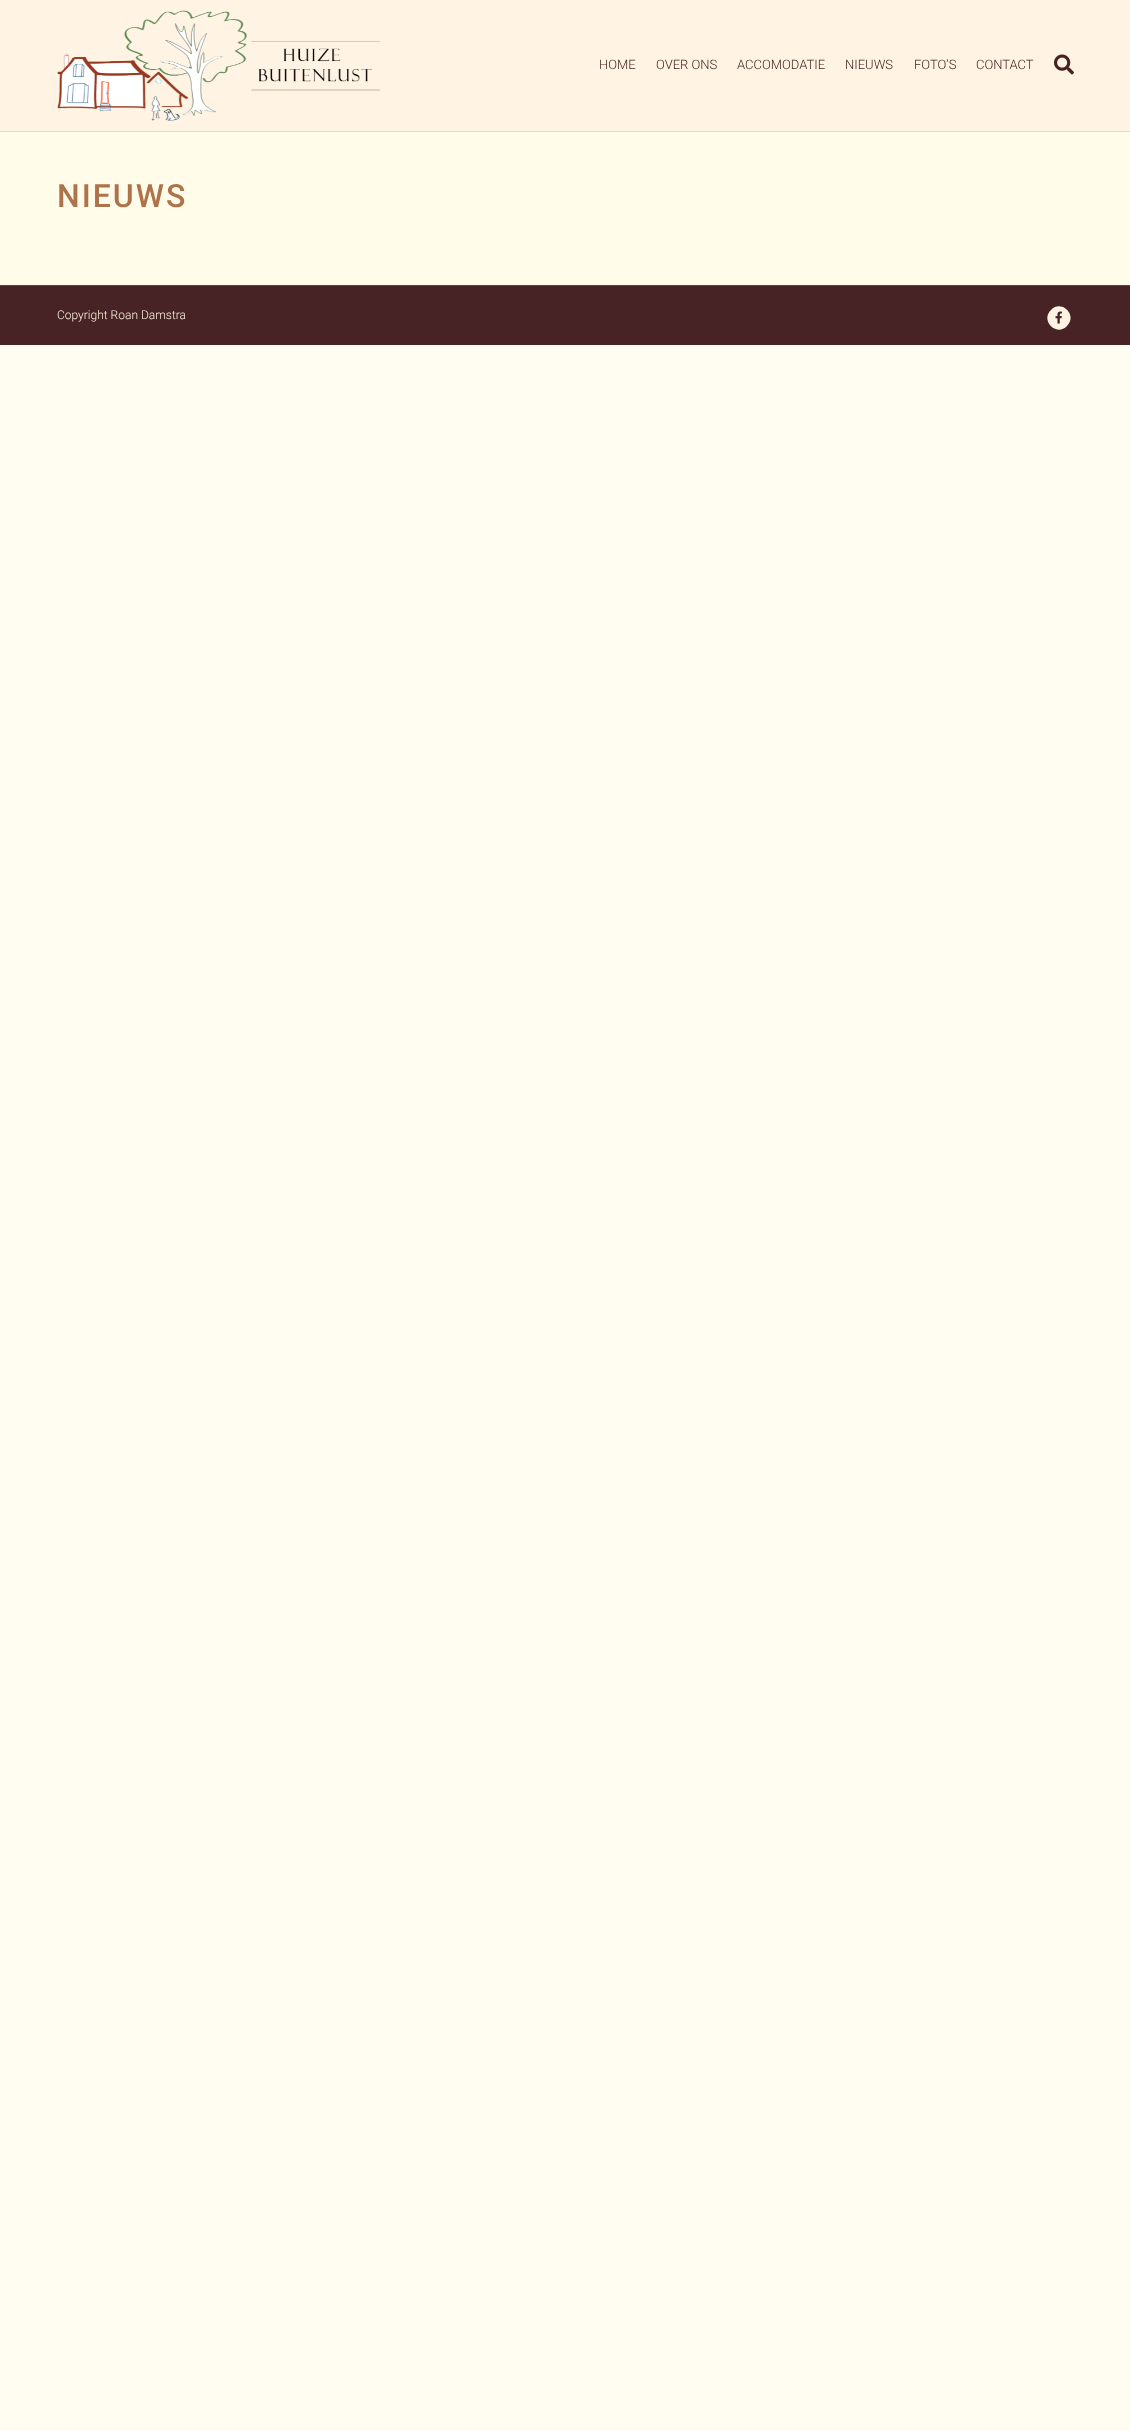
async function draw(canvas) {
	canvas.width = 1130;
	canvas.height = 2431;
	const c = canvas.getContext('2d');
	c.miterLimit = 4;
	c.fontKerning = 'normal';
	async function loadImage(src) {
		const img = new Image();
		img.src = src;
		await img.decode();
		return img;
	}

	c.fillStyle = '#fffdf1';
	c.fillRect(0, 0, 1130, 2431);
	c.fillStyle = '#fff3e3';
	c.fillRect(0, 0, 1130, 131);
	c.fillStyle = '#e7d8ca';
	c.fillRect(0, 131, 1130, 1);
	c.drawImage(await loadImage('img1.png'), 57, 10, 323, 111);
	c.font = '300 13px Roboto';
	c.fillStyle = '#462224';
	for (const [text, x, y] of [
		['HOME', 599, 69],
		['OVER ONS', 656, 69],
		['ACCOMODATIE', 737, 69],
		['NIEUWS', 845, 69],
		['FOTO’S', 914, 69],
		['CONTACT', 976, 69],
	]) {
		c.fillText(text, x, y);
	}
	c.drawImage(await loadImage('img2.png'), 1054, 54, 20, 21);
	c.fillStyle = '#fffce9';
	c.fillRect(0, 132, 1130, 153);
	c.letterSpacing = '2px';
	c.font = '500 32px Roboto';
	c.fillStyle = '#ae734b';
	c.fillText('NIEUWS', 57, 207);
	c.fillStyle = '#472325';
	c.fillRect(0, 286, 1130, 59);
	c.fillStyle = '#73393c';
	c.fillRect(0, 285, 1130, 1);
	c.letterSpacing = '0px';
	c.font = '300 12px Roboto';
	c.fillStyle = '#fff3e3';
	c.fillText('Copyright Roan Damstra', 57, 319);
	c.beginPath();
	c.moveTo(1051, 310);
	c.bezierCurveTo(1061.5, 299, 1078, 315.5, 1067, 326);
	c.bezierCurveTo(1056.5, 337, 1040, 320.5, 1051, 310);
	c.closePath();
	c.fill();
	c.drawImage(await loadImage('img3.png'), 1055, 311, 7, 13);
}

draw(document.querySelector('canvas'));
